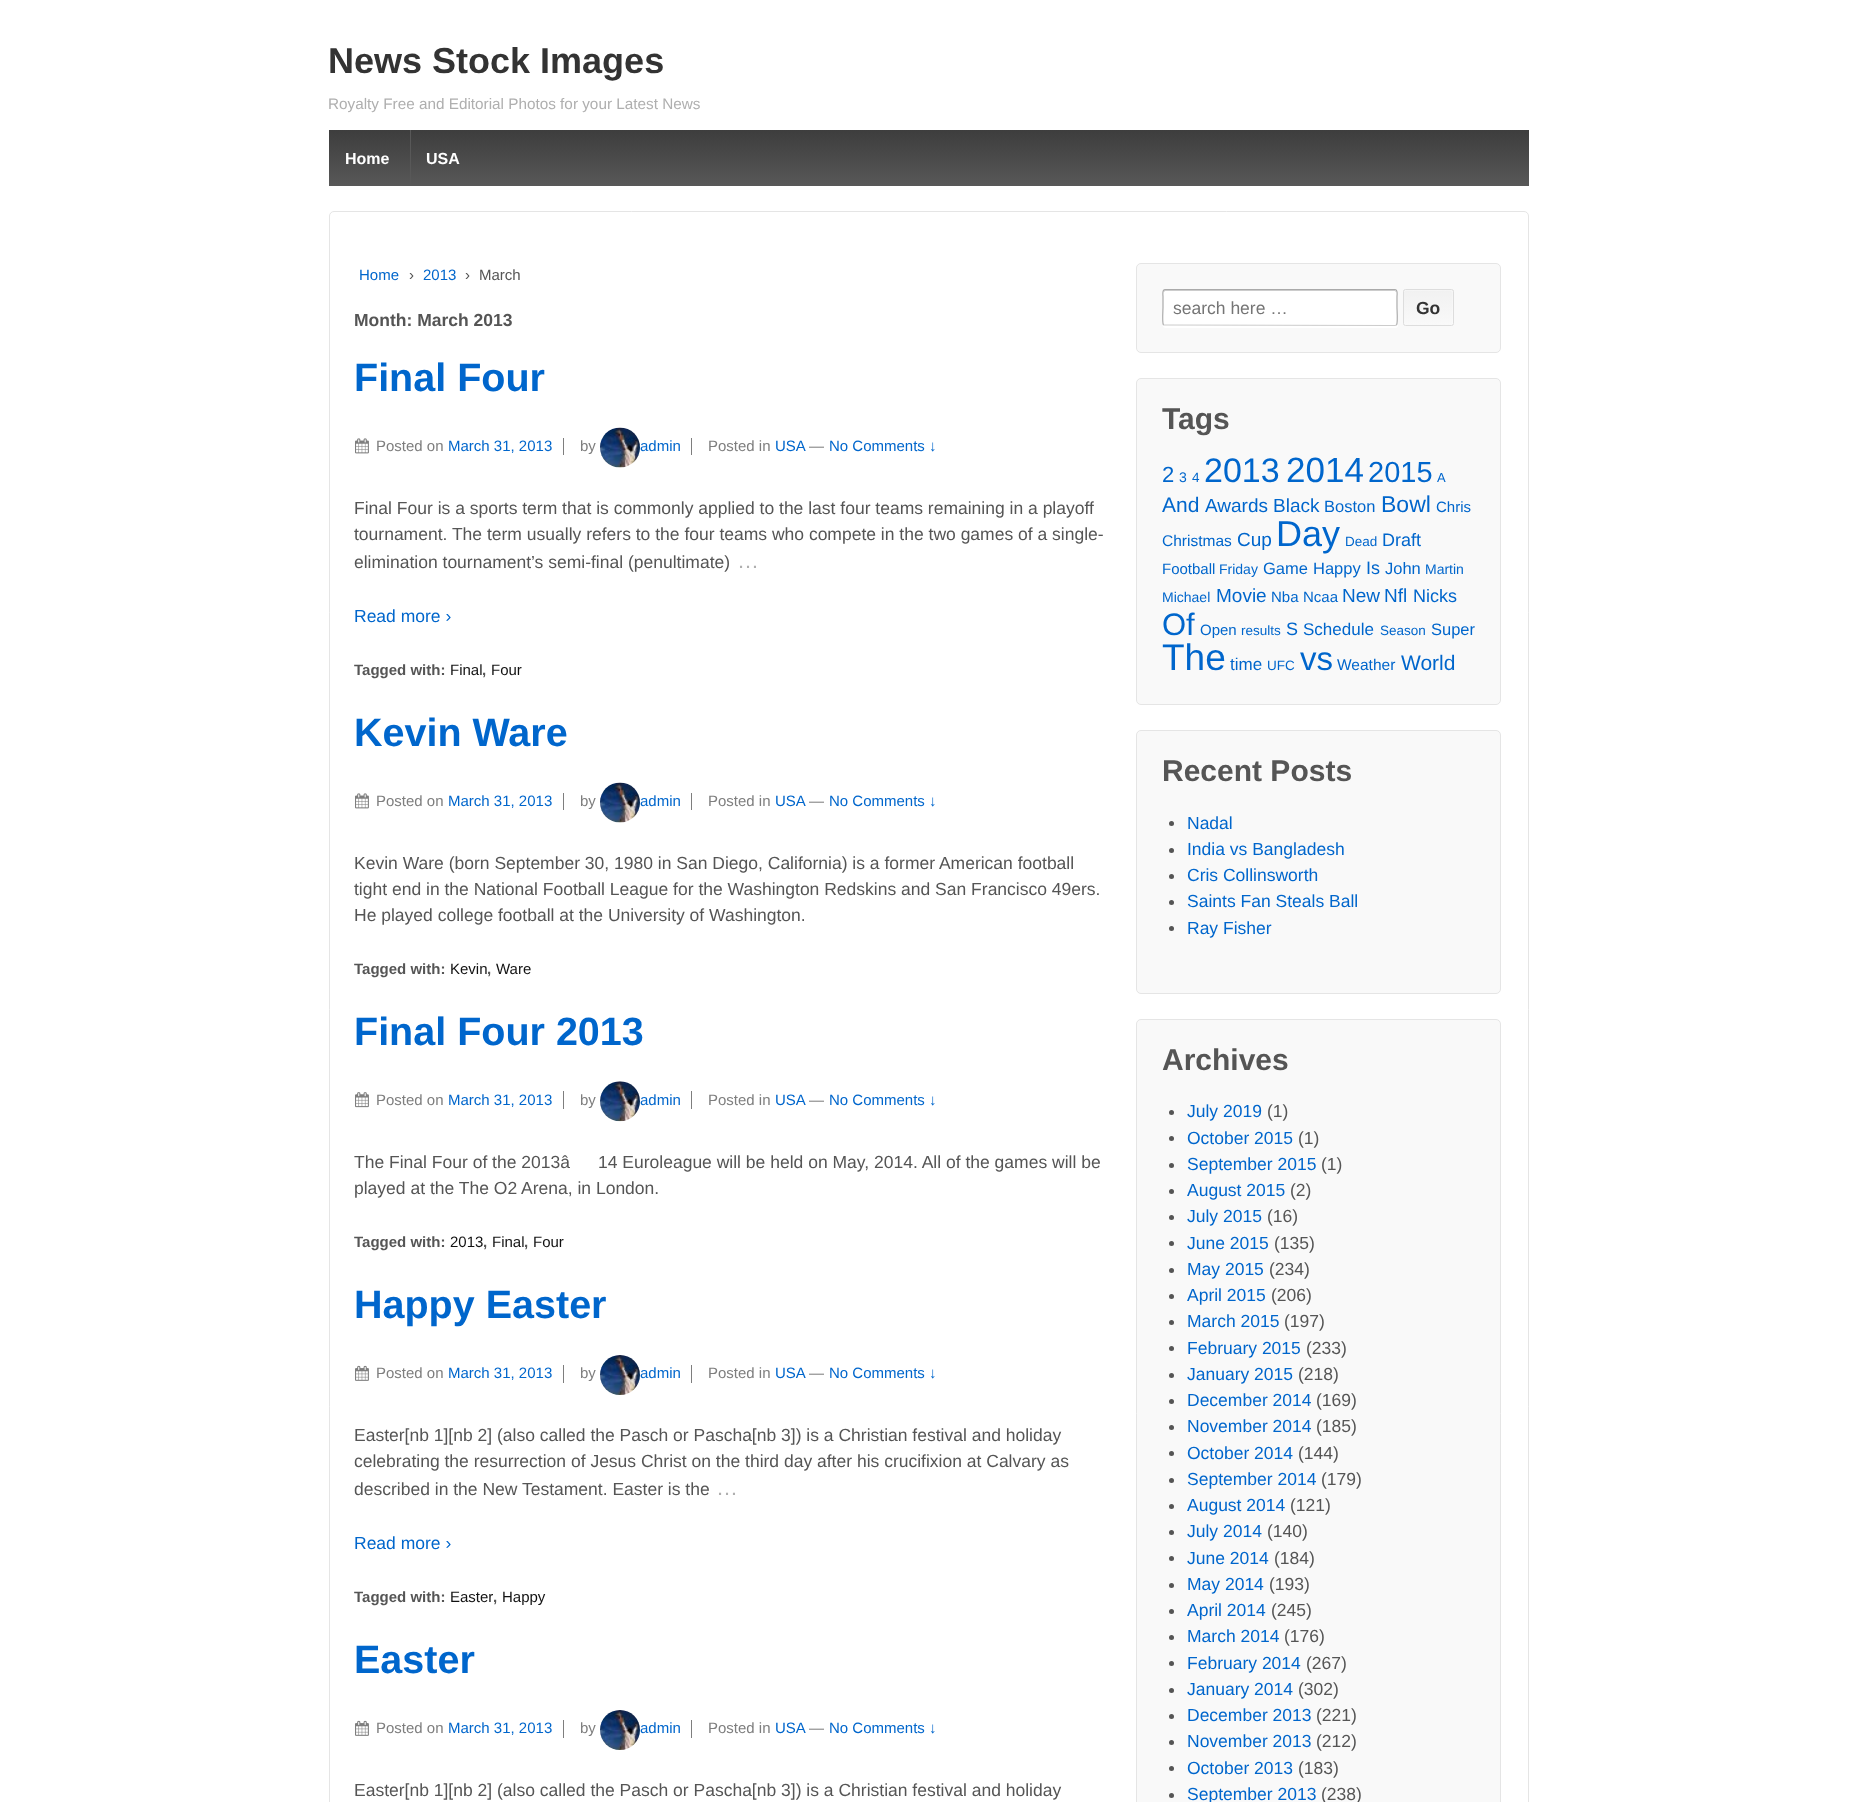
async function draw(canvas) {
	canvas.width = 1856;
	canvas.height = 1802;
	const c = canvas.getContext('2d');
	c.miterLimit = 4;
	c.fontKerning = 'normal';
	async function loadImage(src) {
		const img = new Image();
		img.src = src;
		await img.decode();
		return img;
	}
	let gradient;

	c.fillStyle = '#fff';
	c.fillRect(0, 0, 1856, 1802);
	c.font = 'bold 36px Liberation Sans';
	c.fillStyle = '#333';
	c.fillText('News Stock Images', 328, 73);
	c.font = '15.3px Liberation Sans';
	c.fillStyle = '#afafaf';
	c.fillText('Royalty Free and Editorial Photos for your Latest News', 328, 109);
	gradient = c.createLinearGradient(929, 186, 929, 130);
	gradient.addColorStop(0, '#585858');
	gradient.addColorStop(1, '#3d3d3d');
	c.fillStyle = gradient;
	c.fillRect(329, 130, 1200, 56);
	c.font = 'bold 16px Liberation Sans';
	c.fillStyle = '#fff';
	c.fillText('Home', 345, 164);
	c.fillStyle = '#585858';
	c.fillRect(410, 130, 1, 56);
	c.fillStyle = '#fff';
	c.fillText('USA', 426, 164);
	c.beginPath();
	c.roundRect(329.5, 211.5, 1199, 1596, 4.5);
	c.strokeStyle = '#e5e5e5';
	c.stroke();
	c.font = '15px Liberation Sans';
	c.fillStyle = '#06c';
	c.fillText('Home', 359, 280);
	c.fillStyle = '#555';
	c.fillText('›', 409, 280);
	c.fillStyle = '#06c';
	c.fillText('2013', 423, 280);
	c.fillStyle = '#555';
	c.fillText('›', 465, 280);
	c.fillText('March', 479, 280);
	c.font = 'bold 17.5px Liberation Sans';
	c.fillText('Month: March 2013', 354, 326);
	c.font = 'bold 39.5px Liberation Sans';
	c.fillStyle = '#06c';
	c.fillText('Final Four', 354, 391);
	c.drawImage(await loadImage('img1.png'), 355, 438, 14, 16);
	c.font = '15px Liberation Sans';
	c.fillStyle = '#7e7e7e';
	c.fillText('Posted on', 376, 451);
	c.fillStyle = '#06c';
	c.fillText('March 31, 2013', 448, 451);
	c.fillStyle = '#7e7e7e';
	c.fillRect(563, 438, 1, 17);
	c.fillText('by', 580, 451);
	c.drawImage(await loadImage('img2.png'), 600, 427, 40, 41);
	c.fillStyle = '#06c';
	c.fillText('admin', 640, 451);
	c.fillStyle = '#7e7e7e';
	c.fillRect(691, 438, 1, 17);
	c.fillText('Posted in', 708, 451);
	c.fillStyle = '#06c';
	c.fillText('USA', 775, 451);
	c.fillStyle = '#7e7e7e';
	c.fillText('—', 809, 451);
	c.fillStyle = '#06c';
	c.fillText('No Comments ↓', 829, 451);
	c.font = '17.5px Liberation Sans';
	c.fillStyle = '#555';
	for (const [text, x, y] of [
		['Final Four is a sports term that is commonly applied to the last four teams remaining in a playoff', 354, 514],
		['tournament. The term usually refers to the four teams who compete in the two games of a single-', 354, 540],
		['elimination tournament’s semi-final (penultimate)', 354, 568],
	]) {
		c.fillText(text, x, y);
	}
	c.font = '22px Liberation Sans';
	c.fillStyle = '#afafaf';
	c.fillText('…', 737, 568);
	c.font = '17.5px Liberation Sans';
	c.fillStyle = '#06c';
	c.fillText('Read more ›', 354, 622);
	c.font = 'bold 15px Liberation Sans';
	c.fillStyle = '#555';
	c.fillText('Tagged with:', 354, 675);
	c.font = '15px Liberation Sans';
	c.fillStyle = '#111';
	c.fillText('Final', 450, 675);
	c.font = 'bold 15px Liberation Sans';
	c.fillStyle = '#555';
	c.fillText(',', 482, 675);
	c.font = '15px Liberation Sans';
	c.fillStyle = '#111';
	c.fillText('Four', 491, 675);
	c.font = 'bold 39.5px Liberation Sans';
	c.fillStyle = '#06c';
	c.fillText('Kevin Ware', 354, 746);
	c.drawImage(await loadImage('img1.png'), 355, 793, 14, 16);
	c.font = '15px Liberation Sans';
	c.fillStyle = '#7e7e7e';
	c.fillText('Posted on', 376, 806);
	c.fillStyle = '#06c';
	c.fillText('March 31, 2013', 448, 806);
	c.fillStyle = '#7e7e7e';
	c.fillRect(563, 793, 1, 17);
	c.fillText('by', 580, 806);
	c.drawImage(await loadImage('img2.png'), 600, 782, 40, 41);
	c.fillStyle = '#06c';
	c.fillText('admin', 640, 806);
	c.fillStyle = '#7e7e7e';
	c.fillRect(691, 793, 1, 17);
	c.fillText('Posted in', 708, 806);
	c.fillStyle = '#06c';
	c.fillText('USA', 775, 806);
	c.fillStyle = '#7e7e7e';
	c.fillText('—', 809, 806);
	c.fillStyle = '#06c';
	c.fillText('No Comments ↓', 829, 806);
	c.font = '17.5px Liberation Sans';
	c.fillStyle = '#555';
	for (const [text, x, y] of [
		['Kevin Ware (born September 30, 1980 in San Diego, California) is a former American football', 354, 869],
		['tight end in the National Football League for the Washington Redskins and San Francisco 49ers.', 354, 895],
		['He played college football at the University of Washington.', 354, 921],
	]) {
		c.fillText(text, x, y);
	}
	c.font = 'bold 15px Liberation Sans';
	c.fillText('Tagged with:', 354, 974);
	c.font = '15px Liberation Sans';
	c.fillStyle = '#111';
	c.fillText('Kevin', 450, 974);
	c.font = 'bold 15px Liberation Sans';
	c.fillStyle = '#555';
	c.fillText(',', 487, 974);
	c.font = '15px Liberation Sans';
	c.fillStyle = '#111';
	c.fillText('Ware', 496, 974);
	c.font = 'bold 39.5px Liberation Sans';
	c.fillStyle = '#06c';
	c.fillText('Final Four 2013', 354, 1045);
	c.drawImage(await loadImage('img3.png'), 355, 1092, 14, 16);
	c.font = '15px Liberation Sans';
	c.fillStyle = '#7e7e7e';
	c.fillText('Posted on', 376, 1105);
	c.fillStyle = '#06c';
	c.fillText('March 31, 2013', 448, 1105);
	c.fillStyle = '#7e7e7e';
	c.fillRect(563, 1091, 1, 18);
	c.fillText('by', 580, 1105);
	c.drawImage(await loadImage('img4.png'), 600, 1081, 40, 41);
	c.fillStyle = '#06c';
	c.fillText('admin', 640, 1105);
	c.fillStyle = '#7e7e7e';
	c.fillRect(691, 1091, 1, 18);
	c.fillText('Posted in', 708, 1105);
	c.fillStyle = '#06c';
	c.fillText('USA', 775, 1105);
	c.fillStyle = '#7e7e7e';
	c.fillText('—', 809, 1105);
	c.fillStyle = '#06c';
	c.fillText('No Comments ↓', 829, 1105);
	c.font = '17.5px Liberation Sans';
	c.fillStyle = '#555';
	for (const [text, x, y] of [
		['The Final Four of the 2013â', 354, 1168],
		['14 Euroleague will be held on May, 2014. All of the games will be', 598, 1168],
		['played at the The O2 Arena, in London.', 354, 1194],
	]) {
		c.fillText(text, x, y);
	}
	c.font = 'bold 15px Liberation Sans';
	c.fillText('Tagged with:', 354, 1247);
	c.font = '15px Liberation Sans';
	c.fillStyle = '#111';
	c.fillText('2013', 450, 1247);
	c.font = 'bold 15px Liberation Sans';
	c.fillStyle = '#555';
	c.fillText(',', 483, 1247);
	c.font = '15px Liberation Sans';
	c.fillStyle = '#111';
	c.fillText('Final', 492, 1247);
	c.font = 'bold 15px Liberation Sans';
	c.fillStyle = '#555';
	c.fillText(',', 524, 1247);
	c.font = '15px Liberation Sans';
	c.fillStyle = '#111';
	c.fillText('Four', 533, 1247);
	c.font = 'bold 39.5px Liberation Sans';
	c.fillStyle = '#06c';
	c.fillText('Happy Easter', 354, 1318);
	c.drawImage(await loadImage('img5.png'), 355, 1365, 14, 16);
	c.font = '15px Liberation Sans';
	c.fillStyle = '#7e7e7e';
	c.fillText('Posted on', 376, 1378);
	c.fillStyle = '#06c';
	c.fillText('March 31, 2013', 448, 1378);
	c.fillStyle = '#7e7e7e';
	c.fillRect(563, 1365, 1, 18);
	c.fillText('by', 580, 1378);
	c.drawImage(await loadImage('img6.png'), 600, 1355, 40, 40);
	c.fillStyle = '#06c';
	c.fillText('admin', 640, 1378);
	c.fillStyle = '#7e7e7e';
	c.fillRect(691, 1365, 1, 18);
	c.fillText('Posted in', 708, 1378);
	c.fillStyle = '#06c';
	c.fillText('USA', 775, 1378);
	c.fillStyle = '#7e7e7e';
	c.fillText('—', 809, 1378);
	c.fillStyle = '#06c';
	c.fillText('No Comments ↓', 829, 1378);
	c.font = '17.5px Liberation Sans';
	c.fillStyle = '#555';
	for (const [text, x, y] of [
		['Easter[nb 1][nb 2] (also called the Pasch or Pascha[nb 3]) is a Christian festival and holiday', 354, 1441],
		['celebrating the resurrection of Jesus Christ on the third day after his crucifixion at Calvary as', 354, 1467],
		['described in the New Testament. Easter is the', 354, 1495],
	]) {
		c.fillText(text, x, y);
	}
	c.font = '22px Liberation Sans';
	c.fillStyle = '#afafaf';
	c.fillText('…', 716, 1495);
	c.font = '17.5px Liberation Sans';
	c.fillStyle = '#06c';
	c.fillText('Read more ›', 354, 1549);
	c.font = 'bold 15px Liberation Sans';
	c.fillStyle = '#555';
	c.fillText('Tagged with:', 354, 1602);
	c.font = '15px Liberation Sans';
	c.fillStyle = '#111';
	c.fillText('Easter', 450, 1602);
	c.font = 'bold 15px Liberation Sans';
	c.fillStyle = '#555';
	c.fillText(',', 493, 1602);
	c.font = '15px Liberation Sans';
	c.fillStyle = '#111';
	c.fillText('Happy', 502, 1602);
	c.font = 'bold 39.5px Liberation Sans';
	c.fillStyle = '#06c';
	c.fillText('Easter', 354, 1673);
	c.drawImage(await loadImage('img5.png'), 355, 1720, 14, 16);
	c.font = '15px Liberation Sans';
	c.fillStyle = '#7e7e7e';
	c.fillText('Posted on', 376, 1733);
	c.fillStyle = '#06c';
	c.fillText('March 31, 2013', 448, 1733);
	c.fillStyle = '#7e7e7e';
	c.fillRect(563, 1720, 1, 18);
	c.fillText('by', 580, 1733);
	c.drawImage(await loadImage('img6.png'), 600, 1710, 40, 40);
	c.fillStyle = '#06c';
	c.fillText('admin', 640, 1733);
	c.fillStyle = '#7e7e7e';
	c.fillRect(691, 1720, 1, 18);
	c.fillText('Posted in', 708, 1733);
	c.fillStyle = '#06c';
	c.fillText('USA', 775, 1733);
	c.fillStyle = '#7e7e7e';
	c.fillText('—', 809, 1733);
	c.fillStyle = '#06c';
	c.fillText('No Comments ↓', 829, 1733);
	c.font = '17.5px Liberation Sans';
	c.fillStyle = '#555';
	c.fillText('Easter[nb 1][nb 2] (also called the Pasch or Pascha[nb 3]) is a Christian festival and holiday', 354, 1796);
	c.fillStyle = '#f9f9f9';
	c.beginPath();
	c.roundRect(1136.5, 263.5, 364, 89, 4.5);
	c.fill();
	c.stroke();
	c.fillStyle = '#fff';
	c.beginPath();
	c.moveTo(1163, 325);
	c.lineTo(1163, 326);
	c.bezierCurveTo(1163, 327, 1164, 328, 1166, 328);
	c.lineTo(1396, 328);
	c.bezierCurveTo(1397, 328, 1398, 327, 1398, 326);
	c.lineTo(1398, 292);
	c.lineTo(1397, 291);
	c.lineTo(1398, 318);
	c.bezierCurveTo(1398, 320, 1399, 326, 1395, 326);
	c.lineTo(1165, 326);
	c.closePath();
	c.fill();
	c.beginPath();
	c.roundRect(1163, 289, 235, 37, 2.5);
	c.fill();
	c.fillStyle = '#ccc';
	c.beginPath();
	c.moveTo(1165, 291);
	c.lineTo(1395, 291);
	c.lineTo(1396, 292);
	c.bezierCurveTo(1396, 291, 1396, 290, 1395, 290);
	c.lineTo(1164, 290);
	c.lineTo(1164, 292);
	c.closePath();
	c.fill();
	c.beginPath();
	c.moveTo(1396.5, 325);
	c.lineTo(1395, 325.5);
	c.lineTo(1163.5, 325);
	c.strokeStyle = '#ccc';
	c.lineWidth = 1.2;
	c.stroke();
	c.beginPath();
	c.moveTo(1163.5, 325);
	c.bezierCurveTo(1162, 323.5, 1163, 310, 1163, 307.5);
	c.lineTo(1163, 296.5);
	c.bezierCurveTo(1163, 296, 1162, 289.5, 1165, 289.5);
	c.lineTo(1395, 289.5);
	c.bezierCurveTo(1398, 289.5, 1397, 296, 1397, 296.5);
	c.lineTo(1397, 307.5);
	c.bezierCurveTo(1397, 310, 1398, 323.5, 1396.5, 325);
	c.strokeStyle = '#aaa';
	c.stroke();
	c.fillStyle = '#757575';
	c.fillText('search here …', 1173, 314);
	c.save();
	c.beginPath();
	c.roundRect(1403, 289, 51, 37, 2.5);
	c.clip();
	gradient = c.createLinearGradient(1428, 325, 1428, 290);
	gradient.addColorStop(0, '#f9f9f9');
	gradient.addColorStop(1, '#f1f1f1');
	c.fillStyle = gradient;
	c.fillRect(1403, 290, 51, 35);
	c.restore();
	c.fillStyle = '#ffffff4d';
	c.beginPath();
	c.moveTo(1405, 291);
	c.lineTo(1438, 291);
	c.bezierCurveTo(1455, 291, 1452, 288, 1452, 305);
	c.lineTo(1452, 325);
	c.bezierCurveTo(1453, 325, 1453, 325, 1453, 324);
	c.lineTo(1453, 291);
	c.bezierCurveTo(1453, 290, 1453, 290, 1452, 290);
	c.lineTo(1405, 290);
	c.bezierCurveTo(1404, 290, 1404, 290, 1404, 291);
	c.lineTo(1404, 292);
	c.closePath();
	c.fill();
	c.beginPath();
	c.roundRect(1403.5, 289.5, 50, 36, 2);
	c.strokeStyle = '#ddd';
	c.lineWidth = 1;
	c.stroke();
	c.font = 'bold 17.5px Liberation Sans';
	c.fillStyle = '#333';
	c.fillText('Go', 1416, 314);
	c.fillStyle = '#f9f9f9';
	c.beginPath();
	c.roundRect(1136.5, 378.5, 364, 326, 4.5);
	c.fill();
	c.strokeStyle = '#e5e5e5';
	c.stroke();
	c.font = 'bold 30px Liberation Sans';
	c.fillStyle = '#555';
	c.fillText('Tags', 1162, 429);
	c.font = '22px Liberation Sans';
	c.fillStyle = '#06c';
	c.fillText('2', 1162, 482);
	c.font = '14px Liberation Sans';
	c.fillText('3', 1179, 482);
	c.font = '13.5px Liberation Sans';
	c.fillText('4', 1192, 482);
	c.font = '34px Liberation Sans';
	c.fillText('2013', 1204, 482);
	c.font = '35px Liberation Sans';
	c.fillText('2014', 1286, 482);
	c.font = '29px Liberation Sans';
	c.fillText('2015', 1368, 482);
	c.font = '13px Liberation Sans';
	c.fillText('A', 1437, 482);
	c.font = '21px Liberation Sans';
	c.fillText('And', 1162, 512);
	c.font = '19px Liberation Sans';
	c.fillText('Awards', 1205, 512);
	c.fillText('Black', 1273, 512);
	c.font = '16.5px Liberation Sans';
	c.fillText('Boston', 1324, 512);
	c.font = '23px Liberation Sans';
	c.fillText('Bowl', 1381, 512);
	c.font = '15px Liberation Sans';
	c.fillText('Chris', 1436, 512);
	c.font = '15.5px Liberation Sans';
	c.fillText('Christmas', 1162, 546);
	c.font = '19px Liberation Sans';
	c.fillText('Cup', 1237, 546);
	c.font = '36px Liberation Sans';
	c.fillText('Day', 1276, 546);
	c.font = '13.5px Liberation Sans';
	c.fillText('Dead', 1345, 546);
	c.font = '18px Liberation Sans';
	c.fillText('Draft', 1382, 546);
	c.font = '15px Liberation Sans';
	c.fillText('Football', 1162, 574);
	c.font = '14px Liberation Sans';
	c.fillText('Friday', 1219, 574);
	c.font = '16.5px Liberation Sans';
	c.fillText('Game', 1263, 574);
	c.fillText('Happy', 1313, 574);
	c.font = '18px Liberation Sans';
	c.fillText('Is', 1366, 574);
	c.font = '16.5px Liberation Sans';
	c.fillText('John', 1385, 574);
	c.font = '14px Liberation Sans';
	c.fillText('Martin', 1425, 574);
	c.fillText('Michael', 1162, 602);
	c.font = '19px Liberation Sans';
	c.fillText('Movie', 1216, 602);
	c.font = '15px Liberation Sans';
	c.fillText('Nba', 1271, 602);
	c.fillText('Ncaa', 1303, 602);
	c.font = '19px Liberation Sans';
	c.fillText('New', 1342, 602);
	c.fillText('Nfl', 1384, 602);
	c.font = '18px Liberation Sans';
	c.fillText('Nicks', 1413, 602);
	c.font = '31px Liberation Sans';
	c.fillText('Of', 1162, 635);
	c.font = '15px Liberation Sans';
	c.fillText('Open', 1200, 635);
	c.font = '13.5px Liberation Sans';
	c.fillText('results', 1241, 635);
	c.font = '18px Liberation Sans';
	c.fillText('S', 1286, 635);
	c.font = '17px Liberation Sans';
	c.fillText('Schedule', 1303, 635);
	c.font = '13.5px Liberation Sans';
	c.fillText('Season', 1380, 635);
	c.font = '16.5px Liberation Sans';
	c.fillText('Super', 1431, 635);
	c.font = '37px Liberation Sans';
	c.fillText('The', 1162, 670);
	c.font = '17px Liberation Sans';
	c.fillText('time', 1230, 670);
	c.font = '13.5px Liberation Sans';
	c.fillText('UFC', 1267, 670);
	c.font = '33px Liberation Sans';
	c.fillText('vs', 1300, 670);
	c.font = '15.5px Liberation Sans';
	c.fillText('Weather', 1337, 670);
	c.font = '21px Liberation Sans';
	c.fillText('World', 1401, 670);
	c.fillStyle = '#f9f9f9';
	c.beginPath();
	c.roundRect(1136.5, 730.5, 364, 263, 4.5);
	c.fill();
	c.stroke();
	c.font = 'bold 30px Liberation Sans';
	c.fillStyle = '#555';
	c.fillText('Recent Posts', 1162, 781);
	c.beginPath();
	c.arc(1171.5, 823.5, 2.5, 0, 2 * Math.PI);
	c.fill();
	c.font = '17.5px Liberation Sans';
	c.fillStyle = '#06c';
	c.fillText('Nadal', 1187, 829);
	c.fillStyle = '#555';
	c.beginPath();
	c.arc(1171.5, 850.5, 2.5, 0, 2 * Math.PI);
	c.fill();
	c.fillStyle = '#06c';
	c.fillText('India vs Bangladesh', 1187, 855);
	c.fillStyle = '#555';
	c.beginPath();
	c.arc(1171.5, 876.5, 2.5, 0, 2 * Math.PI);
	c.fill();
	c.fillStyle = '#06c';
	c.fillText('Cris Collinsworth', 1187, 881);
	c.fillStyle = '#555';
	c.beginPath();
	c.arc(1171.5, 902.5, 2.5, 0, 2 * Math.PI);
	c.fill();
	c.fillStyle = '#06c';
	c.fillText('Saints Fan Steals Ball', 1187, 907);
	c.fillStyle = '#555';
	c.beginPath();
	c.arc(1171.5, 928.5, 2.5, 0, 2 * Math.PI);
	c.fill();
	c.fillStyle = '#06c';
	c.fillText('Ray Fisher', 1187, 934);
	c.fillStyle = '#f9f9f9';
	c.beginPath();
	c.roundRect(1136.5, 1019.5, 364, 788, 4.5);
	c.fill();
	c.stroke();
	c.font = 'bold 30px Liberation Sans';
	c.fillStyle = '#555';
	c.fillText('Archives', 1162, 1070);
	c.beginPath();
	c.arc(1171.5, 1112.5, 2.5, 0, 2 * Math.PI);
	c.fill();
	c.font = '17.5px Liberation Sans';
	c.fillStyle = '#06c';
	c.fillText('July 2019', 1187, 1117);
	c.fillStyle = '#555';
	c.fillText('(1)', 1267, 1117);
	c.beginPath();
	c.arc(1171.5, 1138.5, 2.5, 0, 2 * Math.PI);
	c.fill();
	c.fillStyle = '#06c';
	c.fillText('October 2015', 1187, 1144);
	c.fillStyle = '#555';
	c.fillText('(1)', 1298, 1144);
	c.beginPath();
	c.arc(1171.5, 1165.5, 2.5, 0, 2 * Math.PI);
	c.fill();
	c.fillStyle = '#06c';
	c.fillText('September 2015', 1187, 1170);
	c.fillStyle = '#555';
	c.fillText('(1)', 1321, 1170);
	c.beginPath();
	c.arc(1171.5, 1191.5, 2.5, 0, 2 * Math.PI);
	c.fill();
	c.fillStyle = '#06c';
	c.fillText('August 2015', 1187, 1196);
	c.fillStyle = '#555';
	c.fillText('(2)', 1290, 1196);
	c.beginPath();
	c.arc(1171.5, 1217.5, 2.5, 0, 2 * Math.PI);
	c.fill();
	c.fillStyle = '#06c';
	c.fillText('July 2015', 1187, 1222);
	c.fillStyle = '#555';
	c.fillText('(16)', 1267, 1222);
	c.beginPath();
	c.arc(1171.5, 1243.5, 2.5, 0, 2 * Math.PI);
	c.fill();
	c.fillStyle = '#06c';
	c.fillText('June 2015', 1187, 1249);
	c.fillStyle = '#555';
	c.fillText('(135)', 1274, 1249);
	c.beginPath();
	c.arc(1171.5, 1270.5, 2.5, 0, 2 * Math.PI);
	c.fill();
	c.fillStyle = '#06c';
	c.fillText('May 2015', 1187, 1275);
	c.fillStyle = '#555';
	c.fillText('(234)', 1269, 1275);
	c.beginPath();
	c.arc(1171.5, 1296.5, 2.5, 0, 2 * Math.PI);
	c.fill();
	c.fillStyle = '#06c';
	c.fillText('April 2015', 1187, 1301);
	c.fillStyle = '#555';
	c.fillText('(206)', 1271, 1301);
	c.beginPath();
	c.arc(1171.5, 1322.5, 2.5, 0, 2 * Math.PI);
	c.fill();
	c.fillStyle = '#06c';
	c.fillText('March 2015', 1187, 1327);
	c.fillStyle = '#555';
	c.fillText('(197)', 1284, 1327);
	c.beginPath();
	c.arc(1171.5, 1348.5, 2.5, 0, 2 * Math.PI);
	c.fill();
	c.fillStyle = '#06c';
	c.fillText('February 2015', 1187, 1354);
	c.fillStyle = '#555';
	c.fillText('(233)', 1306, 1354);
	c.beginPath();
	c.arc(1171.5, 1375.5, 2.5, 0, 2 * Math.PI);
	c.fill();
	c.fillStyle = '#06c';
	c.fillText('January 2015', 1187, 1380);
	c.fillStyle = '#555';
	c.fillText('(218)', 1298, 1380);
	c.beginPath();
	c.arc(1171.5, 1401.5, 2.5, 0, 2 * Math.PI);
	c.fill();
	c.fillStyle = '#06c';
	c.fillText('December 2014', 1187, 1406);
	c.fillStyle = '#555';
	c.fillText('(169)', 1316, 1406);
	c.beginPath();
	c.arc(1171.5, 1427.5, 2.5, 0, 2 * Math.PI);
	c.fill();
	c.fillStyle = '#06c';
	c.fillText('November 2014', 1187, 1432);
	c.fillStyle = '#555';
	c.fillText('(185)', 1316, 1432);
	c.beginPath();
	c.arc(1171.5, 1453.5, 2.5, 0, 2 * Math.PI);
	c.fill();
	c.fillStyle = '#06c';
	c.fillText('October 2014', 1187, 1459);
	c.fillStyle = '#555';
	c.fillText('(144)', 1298, 1459);
	c.beginPath();
	c.arc(1171.5, 1480.5, 2.5, 0, 2 * Math.PI);
	c.fill();
	c.fillStyle = '#06c';
	c.fillText('September 2014', 1187, 1485);
	c.fillStyle = '#555';
	c.fillText('(179)', 1321, 1485);
	c.beginPath();
	c.arc(1171.5, 1506.5, 2.5, 0, 2 * Math.PI);
	c.fill();
	c.fillStyle = '#06c';
	c.fillText('August 2014', 1187, 1511);
	c.fillStyle = '#555';
	c.fillText('(121)', 1290, 1511);
	c.beginPath();
	c.arc(1171.5, 1532.5, 2.5, 0, 2 * Math.PI);
	c.fill();
	c.fillStyle = '#06c';
	c.fillText('July 2014', 1187, 1537);
	c.fillStyle = '#555';
	c.fillText('(140)', 1267, 1537);
	c.beginPath();
	c.arc(1171.5, 1558.5, 2.5, 0, 2 * Math.PI);
	c.fill();
	c.fillStyle = '#06c';
	c.fillText('June 2014', 1187, 1564);
	c.fillStyle = '#555';
	c.fillText('(184)', 1274, 1564);
	c.beginPath();
	c.arc(1171.5, 1585.5, 2.5, 0, 2 * Math.PI);
	c.fill();
	c.fillStyle = '#06c';
	c.fillText('May 2014', 1187, 1590);
	c.fillStyle = '#555';
	c.fillText('(193)', 1269, 1590);
	c.beginPath();
	c.arc(1171.5, 1611.5, 2.5, 0, 2 * Math.PI);
	c.fill();
	c.fillStyle = '#06c';
	c.fillText('April 2014', 1187, 1616);
	c.fillStyle = '#555';
	c.fillText('(245)', 1271, 1616);
	c.beginPath();
	c.arc(1171.5, 1637.5, 2.5, 0, 2 * Math.PI);
	c.fill();
	c.fillStyle = '#06c';
	c.fillText('March 2014', 1187, 1642);
	c.fillStyle = '#555';
	c.fillText('(176)', 1284, 1642);
	c.beginPath();
	c.arc(1171.5, 1663.5, 2.5, 0, 2 * Math.PI);
	c.fill();
	c.fillStyle = '#06c';
	c.fillText('February 2014', 1187, 1669);
	c.fillStyle = '#555';
	c.fillText('(267)', 1306, 1669);
	c.beginPath();
	c.arc(1171.5, 1690.5, 2.5, 0, 2 * Math.PI);
	c.fill();
	c.fillStyle = '#06c';
	c.fillText('January 2014', 1187, 1695);
	c.fillStyle = '#555';
	c.fillText('(302)', 1298, 1695);
	c.beginPath();
	c.arc(1171.5, 1716.5, 2.5, 0, 2 * Math.PI);
	c.fill();
	c.fillStyle = '#06c';
	c.fillText('December 2013', 1187, 1721);
	c.fillStyle = '#555';
	c.fillText('(221)', 1316, 1721);
	c.beginPath();
	c.arc(1171.5, 1742.5, 2.5, 0, 2 * Math.PI);
	c.fill();
	c.fillStyle = '#06c';
	c.fillText('November 2013', 1187, 1747);
	c.fillStyle = '#555';
	c.fillText('(212)', 1316, 1747);
	c.beginPath();
	c.arc(1171.5, 1768.5, 2.5, 0, 2 * Math.PI);
	c.fill();
	c.fillStyle = '#06c';
	c.fillText('October 2013', 1187, 1774);
	c.fillStyle = '#555';
	c.fillText('(183)', 1298, 1774);
	c.beginPath();
	c.arc(1171.5, 1795.5, 2.5, 0, 2 * Math.PI);
	c.fill();
	c.fillStyle = '#06c';
	c.fillText('September 2013', 1187, 1800);
	c.fillStyle = '#555';
	c.fillText('(238)', 1321, 1800);
}

draw(document.querySelector('canvas'));
